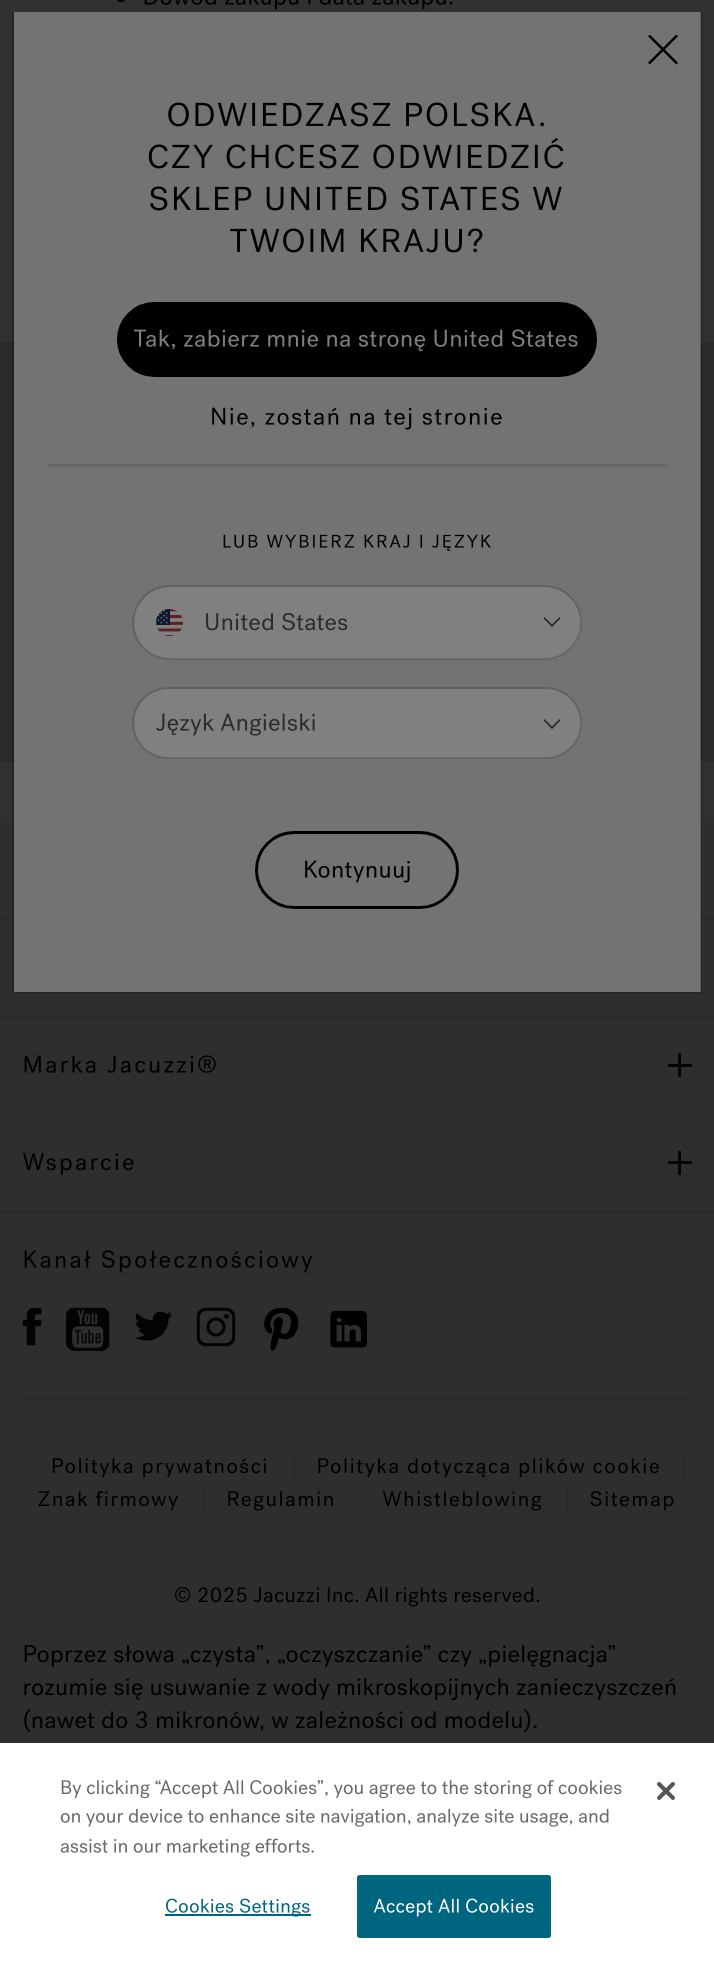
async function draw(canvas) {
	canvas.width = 714;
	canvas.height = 1962;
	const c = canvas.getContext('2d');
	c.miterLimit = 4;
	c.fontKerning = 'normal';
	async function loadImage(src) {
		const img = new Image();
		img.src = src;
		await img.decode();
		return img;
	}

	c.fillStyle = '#313131';
	c.fillRect(0, 0, 714, 1962);
	c.fillStyle = '#000';
	c.beginPath();
	c.roundRect(117, -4, 8, 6, 4);
	c.fill();
	c.drawImage(await loadImage('img1.png'), 144, 0, 309, 10);
	for (const [x, y, w, h, color] of [
		[0, 342, 714, 420, '#2a2a29'],
		[0, 822, 714, 921, '#2e2e2e'],
		[0, 918, 714, 2, '#2a2a29'],
		[0, 1016, 714, 2, '#2a2a29'],
		[0, 1113, 714, 2, '#2a2a29'],
	]) {
		c.fillStyle = color;
		c.fillRect(x, y, w, h);
	}
	c.drawImage(await loadImage('img2.png'), 24, 1055, 192, 18);
	for (const [x, y, w, h, color] of [
		[678, 1053, 3, 24, '#040404'],
		[668, 1064, 24, 3, '#040404'],
		[0, 1211, 714, 2, '#2a2a29'],
	]) {
		c.fillStyle = color;
		c.fillRect(x, y, w, h);
	}
	c.drawImage(await loadImage('img3.png'), 23, 1153, 111, 22);
	c.fillStyle = '#040404';
	c.fillRect(678, 1151, 3, 24);
	c.fillRect(668, 1161, 24, 3);
	c.drawImage(await loadImage('img4.png'), 24, 1250, 289, 23);
	c.drawImage(await loadImage('img5.png'), 22, 1307, 20, 39);
	c.drawImage(await loadImage('img6.png'), 66, 1307, 44, 44);
	c.drawImage(await loadImage('img7.png'), 134, 1311, 38, 30);
	c.drawImage(await loadImage('img8.png'), 196, 1307, 40, 40);
	c.drawImage(await loadImage('img9.png'), 264, 1307, 35, 44);
	c.drawImage(await loadImage('img10.png'), 330, 1311, 37, 37);
	c.fillStyle = '#2a2a29';
	c.fillRect(23, 1398, 669, 2);
	c.fillRect(293, 1451, 2, 33);
	c.drawImage(await loadImage('img11.png'), 52, 1458, 214, 20);
	c.fillRect(684, 1451, 2, 33);
	c.drawImage(await loadImage('img12.png'), 318, 1458, 341, 20);
	c.fillRect(203, 1484, 2, 33);
	c.drawImage(await loadImage('img13.png'), 38, 1491, 140, 20);
	c.fillRect(359, 1484, 2, 33);
	c.drawImage(await loadImage('img14.png'), 228, 1491, 105, 20);
	c.fillRect(566, 1484, 2, 33);
	c.drawImage(await loadImage('img15.png'), 382, 1491, 160, 20);
	c.drawImage(await loadImage('img16.png'), 590, 1491, 84, 20);
	c.drawImage(await loadImage('img17.png'), 175, 1587, 365, 20);
	c.drawImage(await loadImage('img18.png'), 24, 1644, 591, 24);
	c.drawImage(await loadImage('img19.png'), 24, 1678, 652, 23);
	c.drawImage(await loadImage('img20.png'), 24, 1709, 513, 24);
	c.fillStyle = '#737373';
	c.fillRect(14, 12, 687, 980);
	c.fillStyle = '#00000033';
	c.beginPath();
	c.moveTo(702, 12);
	c.lineTo(702, 993);
	c.lineTo(700, 992);
	c.lineTo(700, 12);
	c.closePath();
	c.fill();
	c.beginPath();
	c.moveTo(702, 993);
	c.lineTo(12, 993);
	c.lineTo(14, 992);
	c.lineTo(700, 992);
	c.closePath();
	c.fill();
	c.beginPath();
	c.moveTo(12, 993);
	c.lineTo(12, 12);
	c.lineTo(14, 12);
	c.lineTo(14, 992);
	c.closePath();
	c.fill();
	c.drawImage(await loadImage('img21.png'), 648, 35, 30, 30);
	c.drawImage(await loadImage('img22.png'), 168, 102, 377, 25);
	c.drawImage(await loadImage('img23.png'), 148, 137, 416, 32);
	c.drawImage(await loadImage('img24.png'), 150, 186, 412, 25);
	c.drawImage(await loadImage('img25.png'), 230, 228, 253, 25);
	c.fillStyle = '#000';
	c.beginPath();
	c.roundRect(118, 303, 478, 73, 36.5);
	c.fill();
	c.strokeStyle = '#000';
	c.lineWidth = 2;
	c.stroke();
	c.drawImage(await loadImage('img26.png'), 134, 329, 444, 23);
	c.drawImage(await loadImage('img27.png'), 212, 407, 290, 23);
	c.fillStyle = '#686867';
	c.fillRect(47, 464, 621, 3);
	c.drawImage(await loadImage('img28.png'), 223, 534, 268, 17);
	c.fillStyle = '#808080';
	c.beginPath();
	c.roundRect(134, 587, 447, 72, 36);
	c.fill();
	c.beginPath();
	c.roundRect(133, 586, 448, 73, 36.5);
	c.strokeStyle = '#00000026';
	c.stroke();
	c.drawImage(await loadImage('img29.png'), 156, 609, 27, 27);
	c.drawImage(await loadImage('img30.png'), 206, 612, 142, 19);
	c.fillStyle = '#2c2d2d';
	c.beginPath();
	c.moveTo(559.5, 617);
	c.lineTo(560.5, 618.5);
	c.lineTo(552, 627);
	c.lineTo(551, 625.5);
	c.closePath();
	c.fill();
	c.beginPath();
	c.moveTo(544.5, 617);
	c.lineTo(553, 625.5);
	c.lineTo(552, 627);
	c.lineTo(543.5, 618.5);
	c.closePath();
	c.fill();
	c.fillStyle = '#808080';
	c.beginPath();
	c.roundRect(134, 689, 447, 69, 34.5);
	c.fill();
	c.beginPath();
	c.roundRect(133, 688, 448, 70, 35);
	c.stroke();
	c.drawImage(await loadImage('img31.png'), 156, 713, 159, 23);
	c.fillStyle = '#2c2d2d';
	c.beginPath();
	c.moveTo(559.5, 719);
	c.lineTo(560.5, 720.5);
	c.lineTo(552, 729);
	c.lineTo(551, 727.5);
	c.closePath();
	c.fill();
	c.beginPath();
	c.moveTo(544.5, 719);
	c.lineTo(553, 727.5);
	c.lineTo(552, 729);
	c.lineTo(543.5, 720.5);
	c.closePath();
	c.fill();
	c.beginPath();
	c.roundRect(256.5, 832.5, 201, 75, 37.5);
	c.strokeStyle = '#000';
	c.lineWidth = 3;
	c.stroke();
	c.drawImage(await loadImage('img32.png'), 305, 860, 105, 23);
	c.fillStyle = '#fff';
	c.fillRect(0, 1743, 714, 219);
	c.drawImage(await loadImage('img33.png'), 61, 1780, 561, 19);
	c.drawImage(await loadImage('img34.png'), 60, 1808, 549, 19);
	c.drawImage(await loadImage('img35.png'), 60, 1838, 254, 19);
	c.fillStyle = '#00667f';
	c.fillRect(165, 1914, 146, 2);
	c.drawImage(await loadImage('img36.png'), 166, 1898, 144, 19);
	c.beginPath();
	c.roundRect(358, 1876, 192, 61, 2);
	c.fill();
	c.strokeStyle = '#00667f';
	c.lineWidth = 2;
	c.stroke();
	c.drawImage(await loadImage('img37.png'), 373, 1898, 161, 19);
	c.drawImage(await loadImage('img38.png'), 657, 1782, 18, 18);
}

draw(document.querySelector('canvas'));
